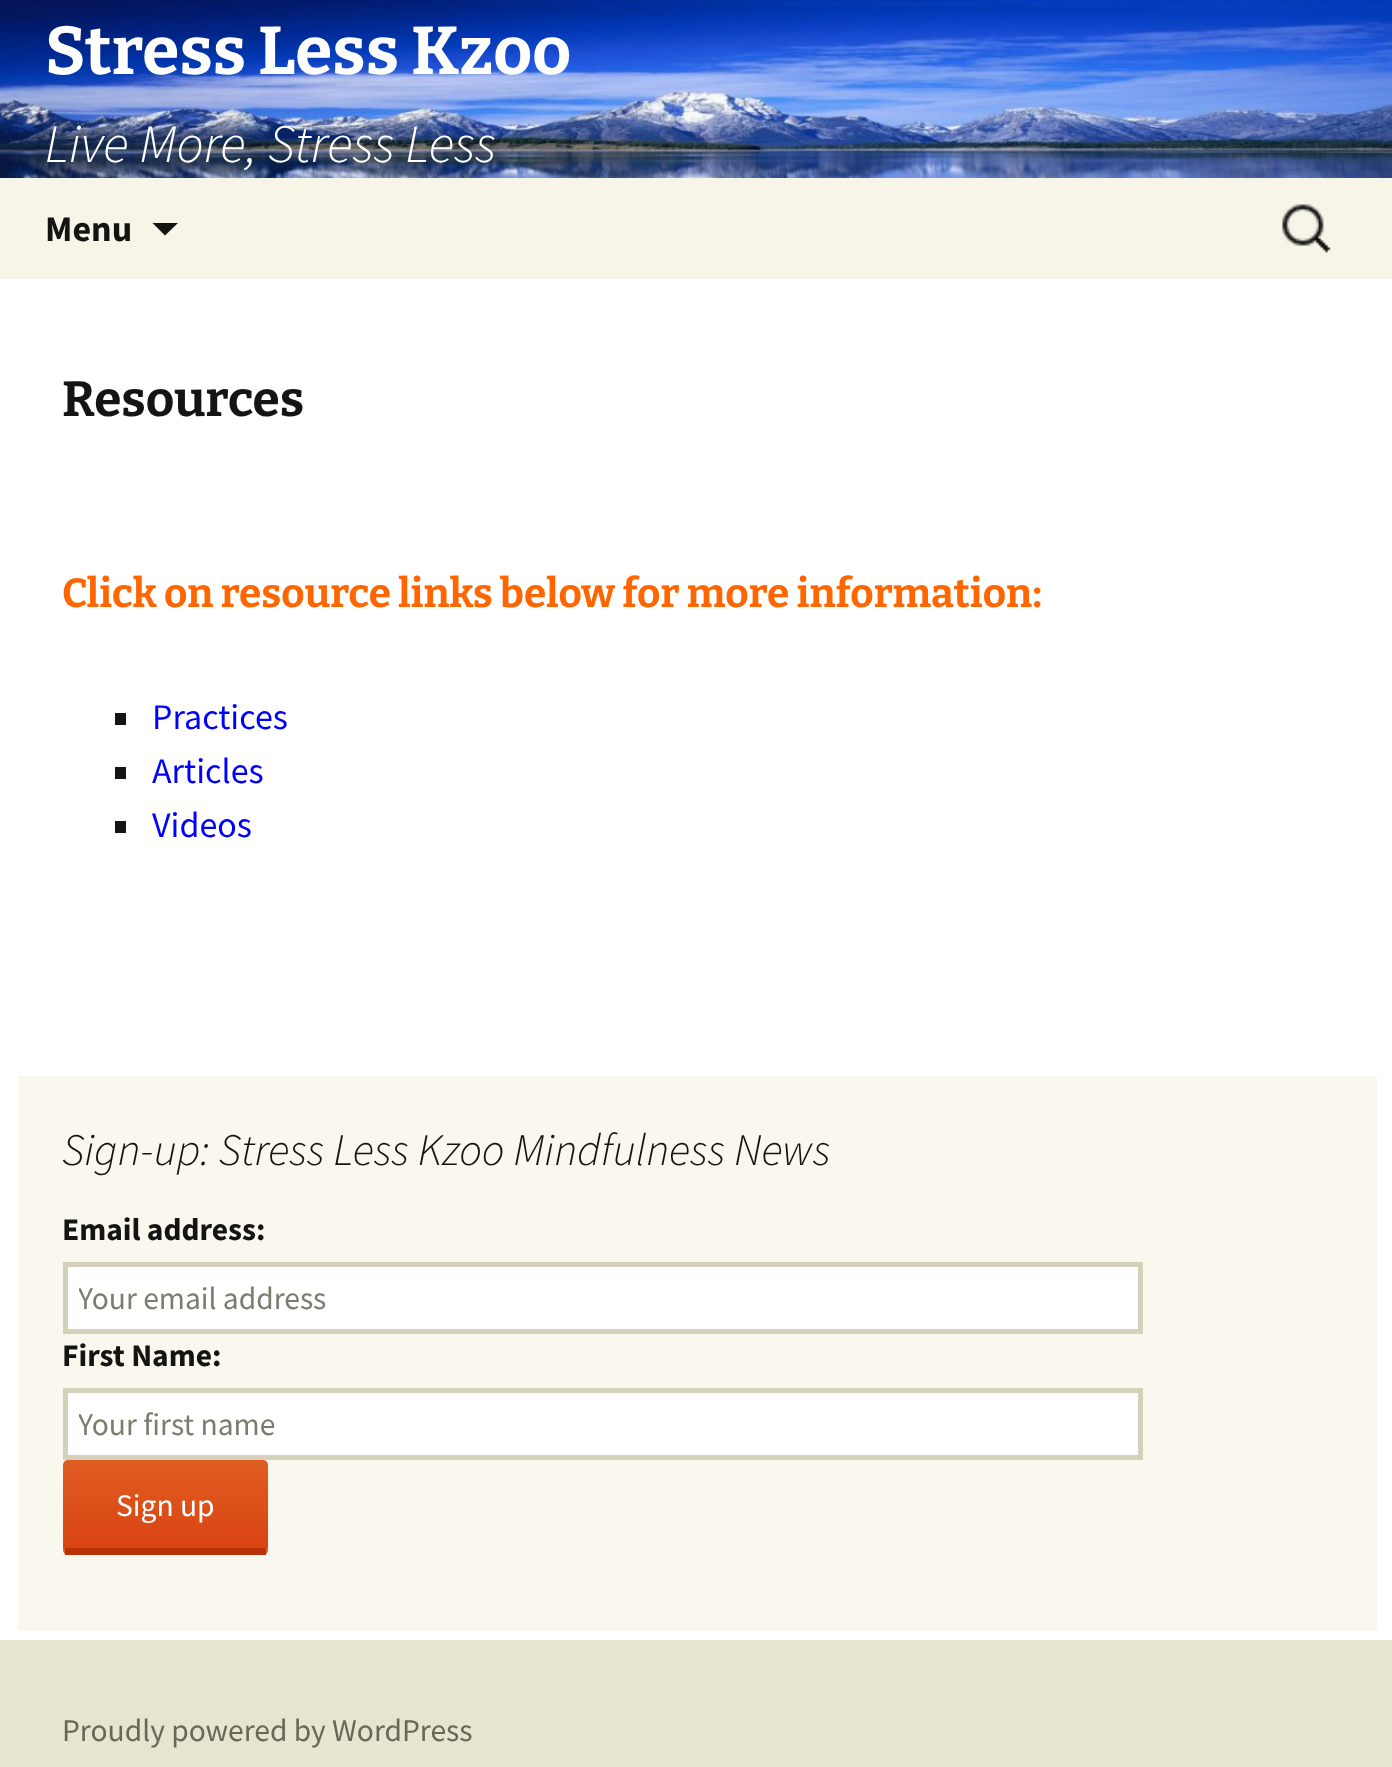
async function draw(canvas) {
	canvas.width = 1392;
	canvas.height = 1767;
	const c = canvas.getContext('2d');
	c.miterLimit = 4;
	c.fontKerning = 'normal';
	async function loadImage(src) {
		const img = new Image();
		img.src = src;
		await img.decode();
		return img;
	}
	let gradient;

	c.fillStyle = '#fff';
	c.fillRect(0, 0, 1392, 1767);
	c.drawImage(await loadImage('img1.png'), 0, 0, 1392, 178);
	c.font = '100 67.5px Bitter';
	c.fillText('Stress Less Kzoo', 45, 74);
	c.font = 'italic 300 54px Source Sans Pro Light';
	c.fillText('Live More, Stress Less', 45, 162);
	c.fillStyle = '#f7f5e7';
	c.fillRect(0, 178, 1392, 101);
	c.font = 'bold 36px Source Sans Pro';
	c.fillStyle = '#141412';
	c.fillText('Menu', 45, 241);
	c.beginPath();
	c.moveTo(152.5, 223);
	c.lineTo(178, 223);
	c.lineTo(165, 235.5);
	c.closePath();
	c.fill();
	c.drawImage(await loadImage('img2.png'), 1282, 204, 49, 49);
	c.font = '100 49.5px Bitter';
	c.fillText('Resources', 62, 416);
	c.font = '100 40.5px Bitter';
	c.fillStyle = '#f60';
	c.fillText('Click on resource links below for more information:', 62, 607);
	c.fillStyle = '#141412';
	c.fillRect(115, 713, 11, 12);
	c.font = '36px Source Sans Pro';
	c.fillStyle = '#00f';
	c.fillText('Practices', 152, 729);
	c.fillStyle = '#141412';
	c.fillRect(115, 767, 11, 12);
	c.fillStyle = '#00f';
	c.fillText('Articles', 152, 783);
	c.fillStyle = '#141412';
	c.fillRect(115, 821, 11, 12);
	c.fillStyle = '#00f';
	c.fillText('Videos', 152, 837);
	c.fillStyle = '#faf8ee';
	c.fillRect(18, 1076, 1359, 555);
	c.font = 'italic 300 45px Source Sans Pro Light';
	c.fillStyle = '#141412';
	c.fillText('Sign-up: Stress Less Kzoo Mindfulness News', 62, 1165);
	c.font = 'bold 31.5px Source Sans Pro';
	c.fillText('Email address:', 62, 1240);
	c.fillStyle = '#fff';
	c.beginPath();
	c.rect(65.5, 1264.5, 1075, 67);
	c.fill();
	c.strokeStyle = '#d4d0ba';
	c.lineWidth = 5;
	c.stroke();
	c.save();
	c.beginPath();
	c.rect(79, 1278, 1048, 41);
	c.clip();
	c.font = '31.5px Source Sans Pro';
	c.fillStyle = '#7d7b6d';
	c.fillText('Your email address', 78, 1309);
	c.restore();
	c.fillStyle = '#141412';
	c.fillText('First Name:', 62, 1366);
	c.fillStyle = '#fff';
	c.beginPath();
	c.rect(65.5, 1390.5, 1075, 67);
	c.fill();
	c.stroke();
	c.save();
	c.beginPath();
	c.rect(79, 1404, 1048, 41);
	c.clip();
	c.font = '31.5px Source Sans Pro';
	c.fillStyle = '#7d7b6d';
	c.fillText('Your first name', 78, 1435);
	c.restore();
	gradient = c.createLinearGradient(165, 1460, 165, 1548);
	gradient.addColorStop(0, '#e05d22');
	gradient.addColorStop(1, '#d94412');
	c.fillStyle = gradient;
	c.beginPath();
	c.roundRect(63, 1460, 205, 88, [5, 5, 0, 0]);
	c.fill();
	gradient = c.createLinearGradient(165, 1548, 165, 1636);
	gradient.addColorStop(0, '#e05d22');
	gradient.addColorStop(1, '#d94412');
	c.fillStyle = gradient;
	c.beginPath();
	c.roundRect(63, 1548, 205, 7, [0, 0, 5, 5]);
	c.fill();
	c.fillStyle = '#b93207';
	c.fillRect(65, 1548, 201, 7);
	c.font = '31.5px Source Sans Pro';
	c.fillStyle = '#fff';
	c.fillText('Sign up', 116, 1516);
	c.fillStyle = '#e8e5ce';
	c.fillRect(0, 1640, 1392, 127);
	c.fillStyle = '#686758';
	c.fillText('Proudly powered by WordPress', 62, 1741);
}

draw(document.querySelector('canvas'));
